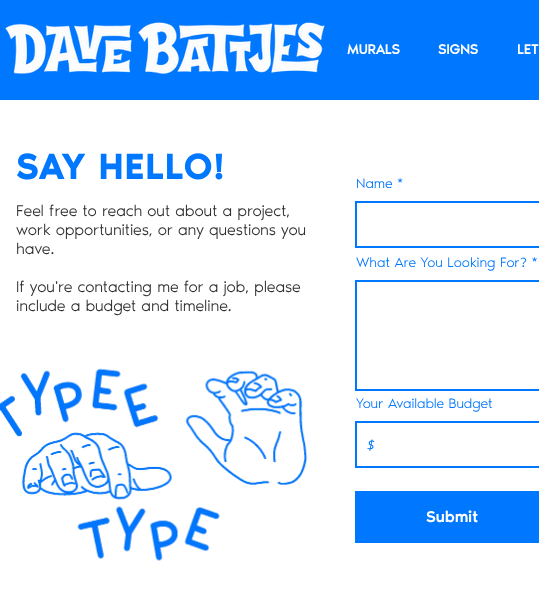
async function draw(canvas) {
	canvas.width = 539;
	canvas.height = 591;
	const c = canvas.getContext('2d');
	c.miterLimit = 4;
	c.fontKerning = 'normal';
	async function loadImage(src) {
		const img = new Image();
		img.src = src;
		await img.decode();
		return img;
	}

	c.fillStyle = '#fff';
	c.fillRect(0, 0, 539, 591);
	c.fillStyle = '#07f';
	c.fillRect(0, 0, 539, 100);
	c.drawImage(await loadImage('img1.png'), 5, 22, 320, 52);
	c.font = 'bold 14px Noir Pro';
	c.fillStyle = '#fff';
	for (const [text, x, y] of [
		['MURALS', 347, 54],
		['SIGNS', 438, 54],
		['LET', 517, 54],
	]) {
		c.fillText(text, x, y);
	}
	c.letterSpacing = '1.75px';
	c.font = 'bold 36px "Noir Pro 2"';
	c.fillStyle = '#07f';
	c.fillText('SAY HELLO!', 16, 179);
	c.letterSpacing = '0px';
	c.font = '300 16px Noir Pro';
	c.fillStyle = '#303030';
	for (const [text, x, y] of [
		['Feel free to reach out about a project,', 16, 216],
		['work opportunities, or any questions you', 16, 235],
		['have.', 16, 254],
		['If you\'re contacting me for a job, please', 16, 292],
		['include a budget and timeline.', 16, 311],
	]) {
		c.fillText(text, x, y);
	}
	c.drawImage(await loadImage('img2.png'), 0, 368, 308, 193);
	c.font = '300 14px Noir Pro';
	c.fillStyle = '#07f';
	c.fillText('Name *', 356, 188);
	c.strokeStyle = '#07f';
	c.lineWidth = 2;
	c.strokeRect(356, 202, 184, 45);
	c.fillText('What Are You Looking For? *', 356, 267);
	c.strokeRect(356, 281, 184, 109);
	c.fillText('Your Available Budget', 356, 408);
	c.strokeRect(356, 422, 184, 45);
	c.font = 'italic 14px Open Sans';
	c.fillText('$', 367, 450);
	c.fillRect(355, 491, 184, 52);
	c.font = '500 16px Noir Pro';
	c.fillStyle = '#fff';
	c.fillText('Submit', 426, 522);
}

draw(document.querySelector('canvas'));
